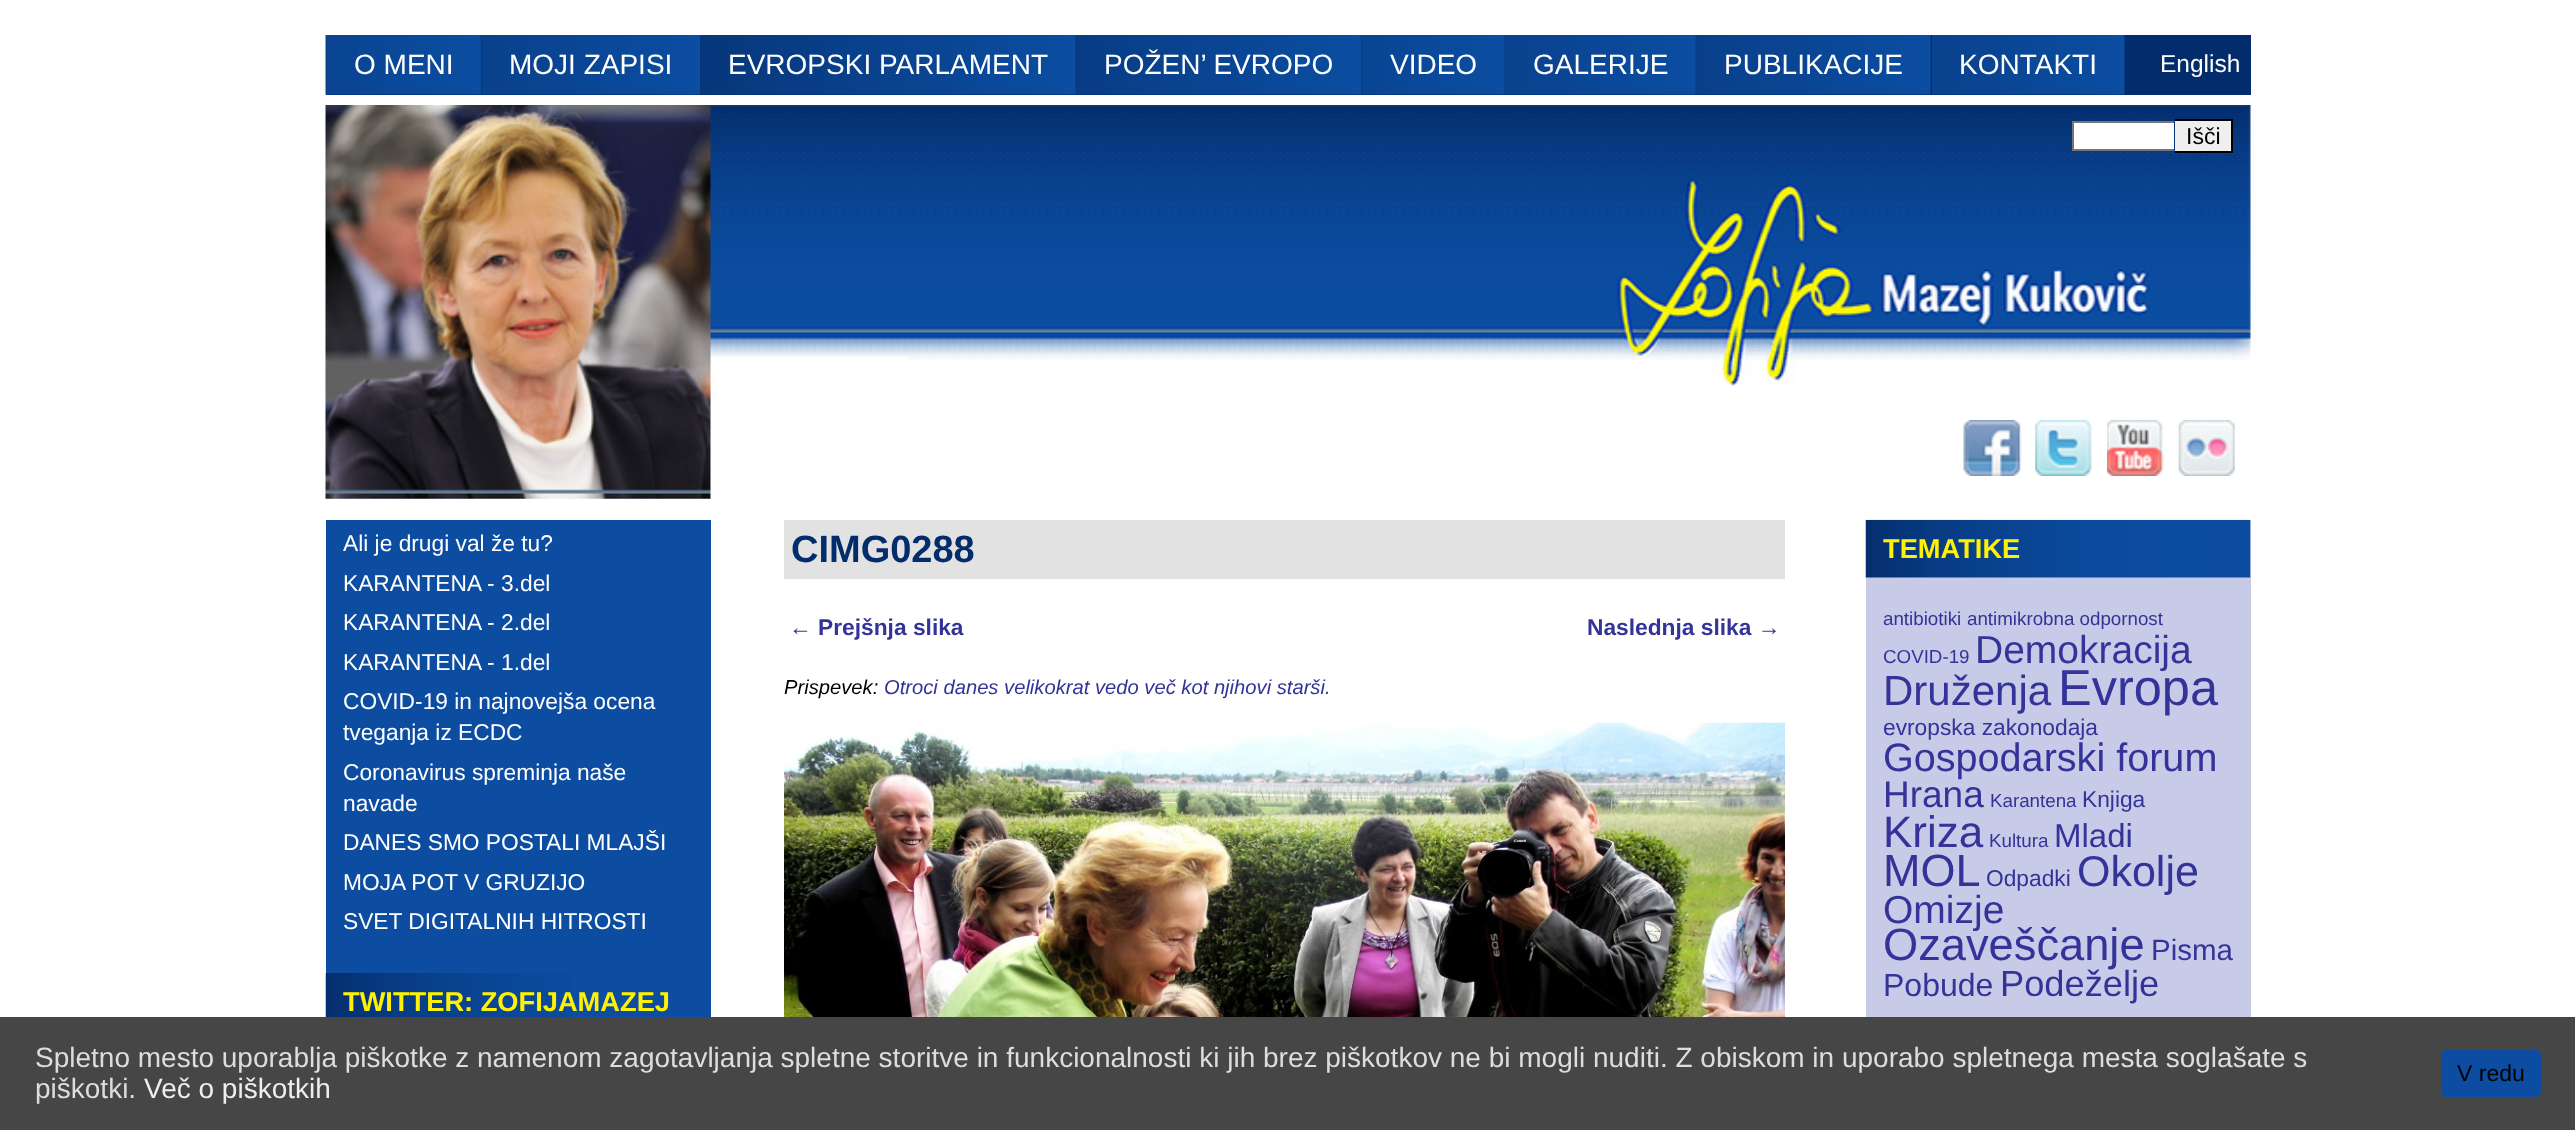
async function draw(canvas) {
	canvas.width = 2575;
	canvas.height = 1130;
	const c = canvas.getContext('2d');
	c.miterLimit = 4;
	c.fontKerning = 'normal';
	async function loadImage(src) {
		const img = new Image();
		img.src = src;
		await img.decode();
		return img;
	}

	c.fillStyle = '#fff';
	c.fillRect(0, 0, 2575, 1130);
	c.fillStyle = '#032c6c';
	c.fillRect(326, 35, 1925, 60);
	c.drawImage(await loadImage('img1.png'), 325, 35, 156, 60);
	c.font = '28px Liberation Sans';
	c.fillStyle = '#fff';
	c.fillText('O MENI', 354, 74);
	c.drawImage(await loadImage('img2.png'), 481, 35, 219, 60);
	c.fillText('MOJI ZAPISI', 509, 74);
	c.drawImage(await loadImage('img3.png'), 700, 35, 376, 60);
	c.fillText('EVROPSKI PARLAMENT', 728, 74);
	c.drawImage(await loadImage('img4.png'), 1076, 35, 286, 60);
	c.fillText('POŽEN’ EVROPO', 1104, 74);
	c.drawImage(await loadImage('img5.png'), 1361, 35, 144, 60);
	c.fillText('VIDEO', 1390, 74);
	c.drawImage(await loadImage('img6.png'), 1505, 35, 191, 60);
	c.fillText('GALERIJE', 1533, 74);
	c.drawImage(await loadImage('img7.png'), 1696, 35, 235, 60);
	c.fillText('PUBLIKACIJE', 1724, 74);
	c.drawImage(await loadImage('img8.png'), 1932, 35, 193, 60);
	c.fillText('KONTAKTI', 1959, 74);
	c.font = '24.5px Liberation Sans';
	c.fillText('English', 2160, 72);
	c.drawImage(await loadImage('img9.png'), 325, 105, 1926, 394);
	for (const [x, y, w, h, color] of [
		[2074, 123, 100, 26, '#fff'],
		[2072, 121, 102, 2, '#767676'],
		[2072, 149, 102, 2, '#767676'],
		[2072, 121, 2, 30, '#767676'],
		[2175, 121, 56, 30, '#efefef'],
		[2175, 119, 58, 2, '#000'],
		[2231, 119, 2, 33, '#000'],
		[2175, 151, 58, 2, '#000'],
	]) {
		c.fillStyle = color;
		c.fillRect(x, y, w, h);
	}
	c.font = '23px Liberation Sans';
	c.fillText('Išči', 2186, 144);
	c.drawImage(await loadImage('img10.png'), 1963, 420, 59, 56);
	c.drawImage(await loadImage('img11.png'), 2035, 420, 57, 56);
	c.drawImage(await loadImage('img12.png'), 2107, 420, 57, 56);
	c.drawImage(await loadImage('img13.png'), 2178, 420, 57, 56);
	c.fillStyle = '#0c4da2';
	c.fillRect(326, 520, 385, 497);
	c.font = '22.75px Liberation Sans';
	c.fillStyle = '#fff';
	for (const [text, x, y] of [
		['Ali je drugi val že tu?', 343, 551],
		['KARANTENA - 3.del', 343, 591],
		['KARANTENA - 2.del', 343, 630],
		['KARANTENA - 1.del', 343, 670],
		['COVID-19 in najnovejša ocena', 343, 709],
		['tveganja iz ECDC', 343, 740],
		['Coronavirus spreminja naše', 343, 780],
		['navade', 343, 811],
		['DANES SMO POSTALI MLAJŠI', 343, 850],
		['MOJA POT V GRUZIJO', 343, 890],
		['SVET DIGITALNIH HITROSTI', 343, 929],
	]) {
		c.fillText(text, x, y);
	}
	c.drawImage(await loadImage('img14.png'), 325, 973, 247, 44);
	c.font = 'bold 27.25px Liberation Sans';
	c.fillStyle = '#fff200';
	c.fillText('TWITTER: ZOFIJAMAZEJ', 343, 1011);
	c.fillStyle = '#e2e2e2';
	c.fillRect(784, 520, 1001, 59);
	c.font = 'bold 38px Liberation Sans';
	c.fillStyle = '#032c6c';
	c.fillText('CIMG0288', 791, 562);
	c.font = 'bold 22.75px Liberation Sans';
	c.fillStyle = '#339';
	c.fillText('← Prejšnja slika', 789, 635);
	c.fillText('Naslednja slika →', 1587, 635);
	c.font = 'italic 20.2px Liberation Sans';
	c.fillStyle = '#000';
	c.fillText('Prispevek:', 784, 694);
	c.fillStyle = '#339';
	c.fillText('Otroci danes velikokrat vedo več kot njihovi starši.', 884, 694);
	c.drawImage(await loadImage('img15.png'), 784, 722, 1001, 295);
	c.fillStyle = '#c7cbe7';
	c.fillRect(1866, 520, 385, 497);
	c.drawImage(await loadImage('img16.png'), 1865, 519, 386, 59);
	c.font = 'bold 27.25px Liberation Sans';
	c.fillStyle = '#fff200';
	c.fillText('TEMATIKE', 1883, 558);
	c.font = '18.75px Liberation Sans';
	c.fillStyle = '#339';
	for (const [text, x, y] of [
		['antibiotiki', 1883, 625],
		['antimikrobna odpornost', 1967, 625],
		['COVID-19', 1883, 663],
	]) {
		c.fillText(text, x, y);
	}
	c.font = '39px Liberation Sans';
	c.fillText('Demokracija', 1975, 663);
	c.font = '42px Liberation Sans';
	c.fillText('Druženja', 1883, 705);
	c.font = '50.5px Liberation Sans';
	c.fillText('Evropa', 2058, 705);
	c.font = '22.75px Liberation Sans';
	c.fillText('evropska zakonodaja', 1883, 735);
	c.font = '39.6px Liberation Sans';
	c.fillText('Gospodarski forum', 1883, 771);
	c.font = '37px Liberation Sans';
	c.fillText('Hrana', 1883, 807);
	c.font = '18.75px Liberation Sans';
	c.fillText('Karantena', 1990, 807);
	c.font = '22.75px Liberation Sans';
	c.fillText('Knjiga', 2082, 807);
	c.font = '44px Liberation Sans';
	c.fillText('Kriza', 1883, 847);
	c.font = '18.75px Liberation Sans';
	c.fillText('Kultura', 1989, 847);
	c.font = '33px Liberation Sans';
	c.fillText('Mladi', 2054, 847);
	c.font = '45px Liberation Sans';
	c.fillText('MOL', 1883, 886);
	c.font = '22.75px Liberation Sans';
	c.fillText('Odpadki', 1986, 886);
	c.font = '43px Liberation Sans';
	c.fillText('Okolje', 2077, 886);
	c.font = '39px Liberation Sans';
	c.fillText('Omizje', 1883, 923);
	c.font = '45.25px Liberation Sans';
	c.fillText('Ozaveščanje', 1883, 960);
	c.font = '29.5px Liberation Sans';
	c.fillText('Pisma', 2151, 960);
	c.font = '32px Liberation Sans';
	c.fillText('Pobude', 1883, 996);
	c.font = '36.25px Liberation Sans';
	c.fillText('Podeželje', 2000, 996);
	c.fillStyle = '#464646';
	c.fillRect(0, 1017, 2575, 113);
	c.font = '28px Liberation Sans';
	c.fillStyle = '#ddd';
	c.fillText('Spletno mesto uporablja piškotke z namenom zagotavljanja spletne storitve in funkcionalnosti ki jih brez piškotkov ne bi mogli nuditi. Z obiskom in uporabo spletnega mesta soglašate s', 35, 1067);
	c.fillText('piškotki.', 35, 1098);
	c.fillStyle = '#eee';
	c.fillText('Več o piškotkih', 144, 1098);
	c.fillStyle = '#0c4da2';
	c.beginPath();
	c.roundRect(2441, 1050, 100, 47, 5);
	c.fill();
	c.font = '23px Liberation Sans';
	c.fillStyle = '#000';
	c.fillText('V redu', 2457, 1081);
}

draw(document.querySelector('canvas'));
